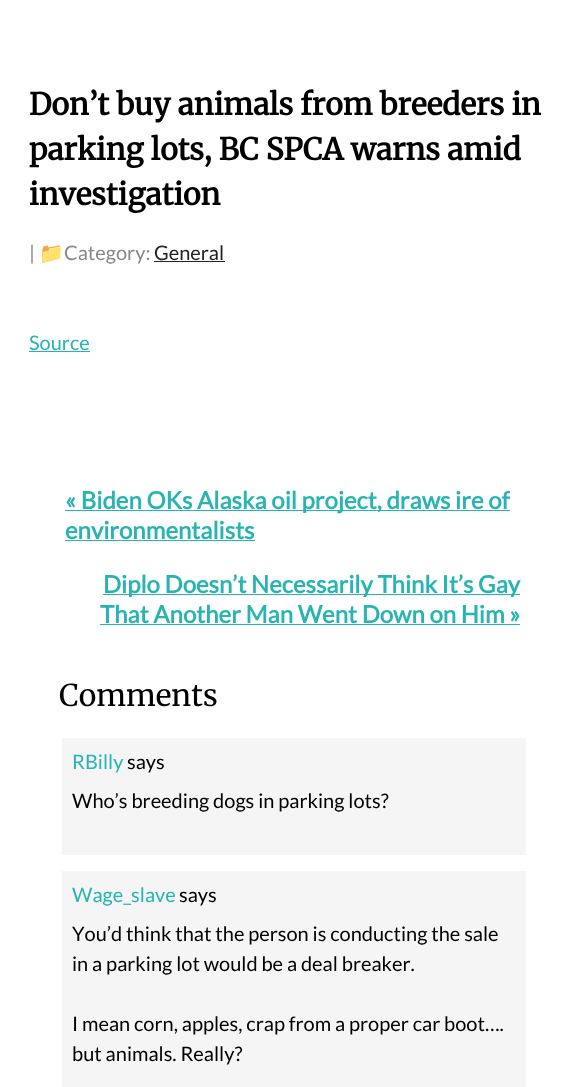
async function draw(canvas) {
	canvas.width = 584;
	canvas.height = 1087;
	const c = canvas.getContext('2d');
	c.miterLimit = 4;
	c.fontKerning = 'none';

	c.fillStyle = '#fff';
	c.fillRect(0, 0, 584, 1087);
	c.font = 'bold 30px Merriweather';
	c.fillStyle = '#000';
	for (const [text, x, y] of [
		['Don’t buy animals from breeders in', 29, 115],
		['parking lots, BC SPCA warns amid', 29, 160],
		['investigation', 29, 205],
	]) {
		c.fillText(text, x, y);
	}
	c.font = '20px Lato';
	c.fillStyle = '#888';
	c.fillText('|', 29, 260);
	c.font = '20px Noto Color Emoji';
	c.fillText('📁', 39, 260);
	c.font = '20px Lato';
	c.fillText('Category:', 64, 260);
	c.fillStyle = '#222';
	c.fillText('General', 154, 260);
	c.fillRect(154, 261, 71, 1);
	c.fillStyle = '#27b4b2';
	c.fillText('Source', 29, 350);
	c.fillRect(29, 351, 61, 1);
	c.fillRect(65, 510, 445, 1);
	c.font = 'bold 24px Lato';
	c.fillText('« Biden OKs Alaska oil project, draws ire of', 65, 509);
	c.fillText('environmentalists', 65, 539);
	c.fillRect(65, 540, 190, 1);
	c.fillRect(103, 594, 417, 1);
	c.fillText('Diplo Doesn’t Necessarily Think It’s Gay', 103, 593);
	c.fillText('That Another Man Went Down on Him »', 100, 623);
	c.fillRect(100, 624, 420, 1);
	c.font = '30px Merriweather';
	c.fillStyle = '#000';
	c.fillText('Comments', 59, 706);
	c.fillStyle = '#f5f5f5';
	c.fillRect(62, 738, 464, 117);
	c.font = '20px Lato';
	c.fillStyle = '#27b4b2';
	c.fillText('RBilly', 72, 769);
	c.fillStyle = '#000';
	c.fillText('says', 127, 769);
	c.fillText('Who’s breeding dogs in parking lots?', 72, 808);
	c.fillStyle = '#f5f5f5';
	c.fillRect(62, 871, 464, 216);
	c.fillStyle = '#27b4b2';
	c.fillText('Wage_slave', 72, 902);
	c.fillStyle = '#000';
	for (const [text, x, y] of [
		['says', 179, 902],
		['You’d think that the person is conducting the sale', 72, 941],
		['in a parking lot would be a deal breaker.', 72, 971],
		['I mean corn, apples, crap from a proper car boot….', 72, 1031],
		['but animals. Really?', 72, 1061],
	]) {
		c.fillText(text, x, y);
	}
}

draw(document.querySelector('canvas'));
